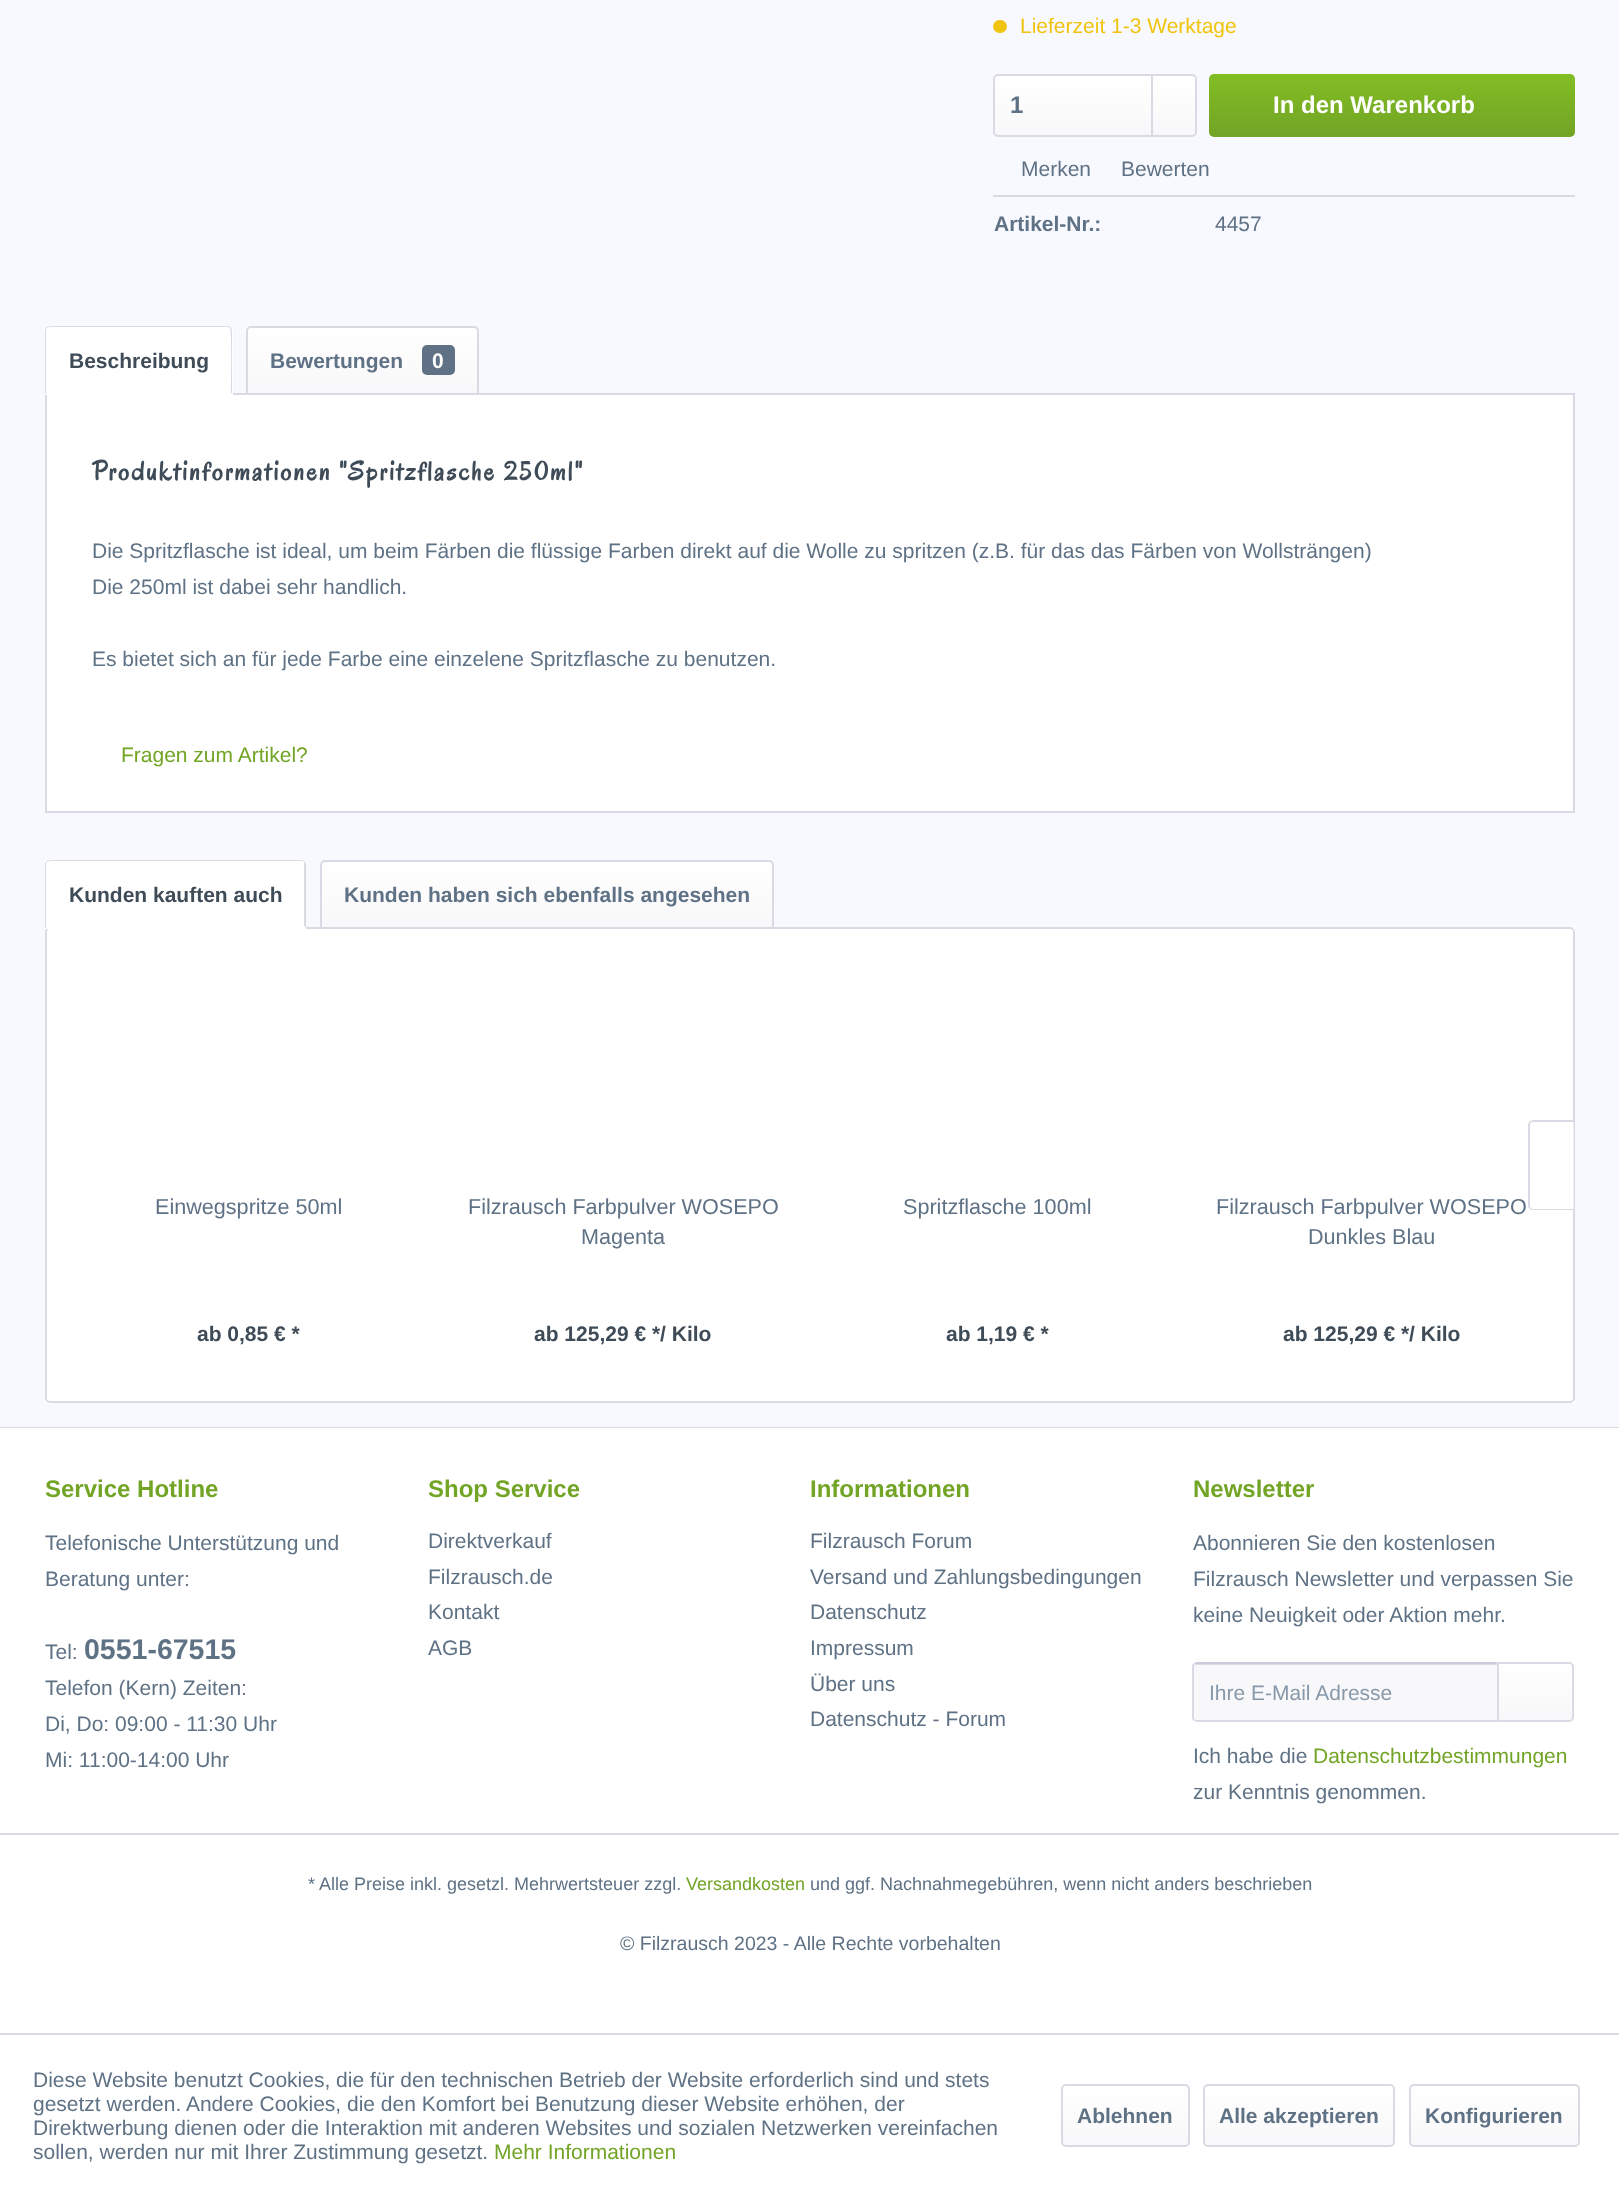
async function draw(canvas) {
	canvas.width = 1619;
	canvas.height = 2195;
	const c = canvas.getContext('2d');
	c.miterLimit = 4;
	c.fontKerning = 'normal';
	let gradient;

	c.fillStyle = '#f8f8ff';
	c.fillRect(0, 0, 1619, 2195);
	c.fillStyle = '#f1c40f';
	c.beginPath();
	c.roundRect(993, 20, 14, 13, 6.5);
	c.fill();
	c.font = '21px Liberation Sans';
	c.fillText('Lieferzeit 1-3 Werktage', 1020, 33);
	gradient = c.createLinearGradient(1095, 75, 1095, 135);
	gradient.addColorStop(0, '#fff');
	gradient.addColorStop(1, '#f8f8fa');
	c.fillStyle = gradient;
	c.beginPath();
	c.roundRect(995, 75, 201, 60, 3);
	c.fill();
	c.beginPath();
	c.roundRect(994, 75, 202, 61, 4);
	c.strokeStyle = '#dadae5';
	c.lineWidth = 2;
	c.stroke();
	c.font = 'bold 24px Liberation Sans';
	c.fillStyle = '#5f7285';
	c.fillText('1', 1010, 113);
	c.fillStyle = '#dadae5';
	c.fillRect(1151, 75, 2, 60);
	gradient = c.createLinearGradient(1392, 73, 1392, 137);
	gradient.addColorStop(0, '#82be24');
	gradient.addColorStop(1, '#72a425');
	c.fillStyle = gradient;
	c.beginPath();
	c.roundRect(1209, 74, 366, 63, 5);
	c.fill();
	c.fillStyle = '#fff';
	c.fillText('In den Warenkorb', 1273, 113);
	c.fillStyle = '#dadae5';
	c.fillRect(993, 195, 582, 2);
	c.font = '21px Liberation Sans';
	c.fillStyle = '#5f7285';
	c.fillText('Merken', 1021, 176);
	c.fillText('Bewerten', 1121, 176);
	c.font = 'bold 21px Liberation Sans';
	c.fillText('Artikel-Nr.:', 994, 231);
	c.font = '21px Liberation Sans';
	c.fillText('4457', 1215, 231);
	c.fillStyle = '#fff';
	c.beginPath();
	c.rect(46, 394, 1528, 418);
	c.fill();
	c.stroke();
	c.beginPath();
	c.roundRect(45, 326, 188, 69, [5, 5, 0, 0]);
	c.fill();
	c.fillStyle = '#dadae5';
	c.beginPath();
	c.moveTo(50, 326);
	c.lineTo(47, 327);
	c.lineTo(47, 328);
	c.lineTo(50, 327);
	c.lineTo(228, 327);
	c.lineTo(230, 328);
	c.lineTo(231, 327);
	c.lineTo(228, 326);
	c.closePath();
	c.fill();
	c.beginPath();
	c.moveTo(232, 394);
	c.lineTo(232, 330);
	c.lineTo(231, 327);
	c.lineTo(230, 328);
	c.bezierCurveTo(232, 329, 231, 386, 231, 393);
	c.closePath();
	c.fill();
	c.fillStyle = '#fff';
	c.beginPath();
	c.moveTo(232, 394);
	c.lineTo(231, 393);
	c.lineTo(46, 393);
	c.lineTo(46, 394);
	c.closePath();
	c.fill();
	c.fillStyle = '#dadae5';
	c.beginPath();
	c.moveTo(45, 330);
	c.lineTo(45, 394);
	c.lineTo(46, 394);
	c.lineTo(46, 393);
	c.lineTo(46, 330);
	c.lineTo(47, 328);
	c.lineTo(47, 327);
	c.bezierCurveTo(46, 328, 45, 329, 45, 330);
	c.closePath();
	c.fill();
	c.font = 'bold 21px Liberation Sans';
	c.fillStyle = '#3f4c58';
	c.fillText('Beschreibung', 69, 368);
	gradient = c.createLinearGradient(362, 327, 362, 393);
	gradient.addColorStop(0, '#fff');
	gradient.addColorStop(1, '#f8f8fa');
	c.fillStyle = gradient;
	c.beginPath();
	c.roundRect(248, 327, 229, 66, [3, 3, 0, 0]);
	c.fill();
	c.beginPath();
	c.roundRect(247, 327, 231, 67, [4, 4, 0, 0]);
	c.stroke();
	c.fillStyle = '#5f7285';
	c.fillText('Bewertungen', 270, 368);
	c.beginPath();
	c.roundRect(422, 345, 33, 30, 5);
	c.fill();
	c.fillStyle = '#fff';
	c.fillText('0', 432, 368);
	c.letterSpacing = '2.25px';
	c.font = 'bold 27px Oregano';
	c.fillStyle = '#3f4c58';
	c.fillText('Produktinformationen "Spritzflasche 250ml"', 92, 480);
	c.letterSpacing = '0px';
	c.font = '21px Liberation Sans';
	c.fillStyle = '#5f7285';
	for (const [text, x, y] of [
		['Die Spritzflasche ist ideal, um beim Färben die flüssige Farben direkt auf die Wolle zu spritzen (z.B. für das das Färben von Wollsträngen)', 92, 558],
		['Die 250ml ist dabei sehr handlich.', 92, 594],
		['Es bietet sich an für jede Farbe eine einzelene Spritzflasche zu benutzen.', 92, 666],
	]) {
		c.fillText(text, x, y);
	}
	c.fillStyle = '#72a425';
	c.fillText('Fragen zum Artikel?', 121, 762);
	c.fillStyle = '#fff';
	c.fillRect(45, 927, 1530, 476);
	c.beginPath();
	c.roundRect(46, 928, 1528, 474, 4);
	c.stroke();
	c.beginPath();
	c.roundRect(45, 860, 261, 69, [5, 5, 0, 0]);
	c.fill();
	c.fillStyle = '#dadae5';
	c.beginPath();
	c.moveTo(50, 860);
	c.lineTo(47, 861);
	c.lineTo(47, 862);
	c.lineTo(50, 861);
	c.lineTo(302, 861);
	c.lineTo(304, 862);
	c.lineTo(304, 861);
	c.lineTo(302, 860);
	c.closePath();
	c.fill();
	c.beginPath();
	c.moveTo(304, 861);
	c.lineTo(306, 864);
	c.lineTo(306, 928);
	c.lineTo(304, 926);
	c.lineTo(304, 864);
	c.lineTo(304, 862);
	c.closePath();
	c.fill();
	c.fillStyle = '#fff';
	c.beginPath();
	c.moveTo(306, 928);
	c.lineTo(46, 928);
	c.lineTo(46, 927);
	c.lineTo(304, 927);
	c.lineTo(304, 926);
	c.closePath();
	c.fill();
	c.fillStyle = '#dadae5';
	c.beginPath();
	c.moveTo(45, 864);
	c.lineTo(45, 928);
	c.lineTo(46, 928);
	c.lineTo(46, 927);
	c.lineTo(46, 864);
	c.lineTo(47, 862);
	c.lineTo(47, 861);
	c.bezierCurveTo(46, 862, 45, 863, 45, 864);
	c.closePath();
	c.fill();
	c.font = 'bold 21px Liberation Sans';
	c.fillStyle = '#3f4c58';
	c.fillText('Kunden kauften auch', 69, 902);
	gradient = c.createLinearGradient(547, 861, 547, 927);
	gradient.addColorStop(0, '#fff');
	gradient.addColorStop(1, '#f8f8fa');
	c.fillStyle = gradient;
	c.beginPath();
	c.roundRect(321, 861, 452, 66, [3, 3, 0, 0]);
	c.fill();
	c.beginPath();
	c.roundRect(321, 861, 452, 67, [4, 4, 0, 0]);
	c.stroke();
	c.fillStyle = '#5f7285';
	c.fillText('Kunden haben sich ebenfalls angesehen', 344, 902);
	c.fillStyle = '#ffffff80';
	c.beginPath();
	c.roundRect(1530, 1122, 44, 87, [3, 0, 0, 3]);
	c.fill();
	c.fillStyle = '#dadae5';
	c.beginPath();
	c.moveTo(1533, 1120);
	c.lineTo(1574, 1120);
	c.lineTo(1574, 1210);
	c.lineTo(1533, 1210);
	c.bezierCurveTo(1531, 1210, 1528, 1208, 1528, 1206);
	c.lineTo(1528, 1125);
	c.bezierCurveTo(1528, 1123, 1531, 1120, 1533, 1120);
	c.closePath();
	c.moveTo(1533, 1122);
	c.lineTo(1574, 1122);
	c.lineTo(1574, 1209);
	c.lineTo(1533, 1209);
	c.bezierCurveTo(1531, 1209, 1530, 1208, 1530, 1206);
	c.lineTo(1530, 1125);
	c.bezierCurveTo(1530, 1123, 1531, 1122, 1533, 1122);
	c.closePath();
	c.fill('evenodd');
	c.font = '21.6px Liberation Sans';
	c.fillStyle = '#5f7285';
	c.fillText('Einwegspritze 50ml', 155, 1214);
	c.font = 'bold 21px Liberation Sans';
	c.fillStyle = '#3f4c58';
	c.fillText('ab 0,85 € *', 197, 1341);
	c.font = '21.6px Liberation Sans';
	c.fillStyle = '#5f7285';
	c.fillText('Filzrausch Farbpulver WOSEPO', 468, 1214);
	c.fillText('Magenta', 581, 1244);
	c.font = 'bold 21px Liberation Sans';
	c.fillStyle = '#3f4c58';
	c.fillText('ab 125,29 € */ Kilo', 534, 1341);
	c.font = '21.6px Liberation Sans';
	c.fillStyle = '#5f7285';
	c.fillText('Spritzflasche 100ml', 903, 1214);
	c.font = 'bold 21px Liberation Sans';
	c.fillStyle = '#3f4c58';
	c.fillText('ab 1,19 € *', 946, 1341);
	c.font = '21.6px Liberation Sans';
	c.fillStyle = '#5f7285';
	c.fillText('Filzrausch Farbpulver WOSEPO', 1216, 1214);
	c.fillText('Dunkles Blau', 1308, 1244);
	c.font = 'bold 21px Liberation Sans';
	c.fillStyle = '#3f4c58';
	c.fillText('ab 125,29 € */ Kilo', 1283, 1341);
	for (const [x, y, w, h, color] of [
		[0, 1427, 1619, 1, '#dadae5'],
		[0, 1428, 1619, 605, '#fff'],
		[0, 1833, 1619, 2, '#dadae5'],
	]) {
		c.fillStyle = color;
		c.fillRect(x, y, w, h);
	}
	c.font = 'bold 24px Liberation Sans';
	c.fillStyle = '#72a425';
	c.fillText('Service Hotline', 45, 1497);
	c.font = '21px Liberation Sans';
	c.fillStyle = '#5f7285';
	for (const [text, x, y] of [
		['Telefonische Unterstützung und', 45, 1550],
		['Beratung unter:', 45, 1586],
		['Tel:', 45, 1659],
	]) {
		c.fillText(text, x, y);
	}
	c.font = 'bold 28.5px Liberation Sans';
	c.fillText('0551-67515', 84, 1659);
	c.font = '21px Liberation Sans';
	for (const [text, x, y] of [
		['Telefon (Kern) Zeiten:', 45, 1695],
		['Di, Do: 09:00 - 11:30 Uhr', 45, 1731],
		['Mi: 11:00-14:00 Uhr', 45, 1767],
	]) {
		c.fillText(text, x, y);
	}
	c.font = 'bold 24px Liberation Sans';
	c.fillStyle = '#72a425';
	c.fillText('Shop Service', 428, 1497);
	c.font = '21px Liberation Sans';
	c.fillStyle = '#5f7285';
	for (const [text, x, y] of [
		['Direktverkauf', 428, 1548],
		['Filzrausch.de', 428, 1584],
		['Kontakt', 428, 1619],
		['AGB', 428, 1655],
	]) {
		c.fillText(text, x, y);
	}
	c.font = 'bold 24px Liberation Sans';
	c.fillStyle = '#72a425';
	c.fillText('Informationen', 810, 1497);
	c.font = '21px Liberation Sans';
	c.fillStyle = '#5f7285';
	for (const [text, x, y] of [
		['Filzrausch Forum', 810, 1548],
		['Versand und Zahlungsbedingungen', 810, 1584],
		['Datenschutz', 810, 1619],
		['Impressum', 810, 1655],
		['Über uns', 810, 1691],
		['Datenschutz - Forum', 810, 1726],
	]) {
		c.fillText(text, x, y);
	}
	c.font = 'bold 24px Liberation Sans';
	c.fillStyle = '#72a425';
	c.fillText('Newsletter', 1193, 1497);
	c.font = '21px Liberation Sans';
	c.fillStyle = '#5f7285';
	for (const [text, x, y] of [
		['Abonnieren Sie den kostenlosen', 1193, 1550],
		['Filzrausch Newsletter und verpassen Sie', 1193, 1586],
		['keine Neuigkeit oder Aktion mehr.', 1193, 1622],
	]) {
		c.fillText(text, x, y);
	}
	c.fillStyle = '#f8f8fa';
	c.beginPath();
	c.roundRect(1194, 1664, 303, 57, [3, 0, 0, 3]);
	c.fill();
	c.fillStyle = '#dadae5';
	c.beginPath();
	c.moveTo(1197, 1665);
	c.lineTo(1497, 1665);
	c.lineTo(1497, 1664);
	c.lineTo(1197, 1664);
	c.bezierCurveTo(1195, 1664, 1194, 1666, 1194, 1668);
	c.bezierCurveTo(1194, 1666, 1195, 1665, 1197, 1665);
	c.closePath();
	c.fill();
	c.fillStyle = '#cbcbdb';
	c.beginPath();
	c.moveTo(1197, 1662);
	c.lineTo(1194, 1663);
	c.lineTo(1195, 1664);
	c.lineTo(1197, 1664);
	c.lineTo(1496, 1664);
	c.lineTo(1498, 1662);
	c.closePath();
	c.fill();
	c.fillStyle = '#dadae5';
	c.beginPath();
	c.moveTo(1498, 1662);
	c.lineTo(1498, 1722);
	c.lineTo(1496, 1720);
	c.lineTo(1497, 1720);
	c.lineTo(1497, 1664);
	c.lineTo(1496, 1664);
	c.closePath();
	c.fill();
	c.beginPath();
	c.moveTo(1197, 1722);
	c.lineTo(1498, 1722);
	c.lineTo(1496, 1720);
	c.lineTo(1197, 1720);
	c.lineTo(1195, 1720);
	c.lineTo(1194, 1721);
	c.closePath();
	c.fill();
	c.beginPath();
	c.moveTo(1192, 1665);
	c.lineTo(1194, 1663);
	c.lineTo(1195, 1664);
	c.lineTo(1194, 1666);
	c.lineTo(1194, 1718);
	c.lineTo(1195, 1720);
	c.lineTo(1194, 1721);
	c.lineTo(1192, 1719);
	c.closePath();
	c.fill();
	c.fillStyle = '#8798a9';
	c.fillText('Ihre E-Mail Adresse', 1209, 1700);
	gradient = c.createLinearGradient(1535, 1664, 1535, 1721);
	gradient.addColorStop(0, '#fff');
	gradient.addColorStop(1, '#f8f8fa');
	c.fillStyle = gradient;
	c.beginPath();
	c.roundRect(1499, 1664, 73, 57, [0, 3, 3, 0]);
	c.fill();
	c.beginPath();
	c.roundRect(1498, 1663, 75, 58, [0, 4, 4, 0]);
	c.stroke();
	c.fillStyle = '#5f7285';
	c.fillText('Ich habe die', 1193, 1763);
	c.fillStyle = '#72a425';
	c.fillText('Datenschutzbestimmungen', 1313, 1763);
	c.fillStyle = '#5f7285';
	c.fillText('zur Kenntnis genommen.', 1193, 1799);
	c.font = '18px Liberation Sans';
	c.fillText('* Alle Preise inkl. gesetzl. Mehrwertsteuer zzgl.', 308, 1890);
	c.fillStyle = '#72a425';
	c.fillText('Versandkosten', 686, 1890);
	c.fillStyle = '#5f7285';
	c.fillText('und ggf. Nachnahmegebühren, wenn nicht anders beschrieben', 810, 1890);
	c.font = '19.5px Liberation Sans';
	c.fillText('© Filzrausch 2023 - Alle Rechte vorbehalten', 620, 1950);
	c.fillStyle = '#fff';
	c.fillRect(0, 2035, 1619, 160);
	c.fillStyle = '#dadae5';
	c.fillRect(0, 2033, 1619, 2);
	c.font = '21px Liberation Sans';
	c.fillStyle = '#5f7285';
	for (const [text, x, y] of [
		['Diese Website benutzt Cookies, die für den technischen Betrieb der Website erforderlich sind und stets', 33, 2087],
		['gesetzt werden. Andere Cookies, die den Komfort bei Benutzung dieser Website erhöhen, der', 33, 2111],
		['Direktwerbung dienen oder die Interaktion mit anderen Websites und sozialen Netzwerken vereinfachen', 33, 2135],
		['sollen, werden nur mit Ihrer Zustimmung gesetzt.', 33, 2159],
	]) {
		c.fillText(text, x, y);
	}
	c.fillStyle = '#72a425';
	c.fillText('Mehr Informationen', 494, 2159);
	gradient = c.createLinearGradient(1125, 2085, 1125, 2145);
	gradient.addColorStop(0, '#fff');
	gradient.addColorStop(1, '#f8f8fa');
	c.fillStyle = gradient;
	c.beginPath();
	c.roundRect(1062, 2085, 126, 60, 3);
	c.fill();
	c.beginPath();
	c.roundRect(1062, 2085, 127, 61, 4);
	c.stroke();
	c.font = 'bold 21px Liberation Sans';
	c.fillStyle = '#5f7285';
	c.fillText('Ablehnen', 1077, 2123);
	gradient = c.createLinearGradient(1299, 2085, 1299, 2145);
	gradient.addColorStop(0, '#fff');
	gradient.addColorStop(1, '#f8f8fa');
	c.fillStyle = gradient;
	c.beginPath();
	c.roundRect(1205, 2085, 189, 60, 3);
	c.fill();
	c.beginPath();
	c.roundRect(1204, 2085, 190, 61, 4);
	c.stroke();
	c.fillStyle = '#5f7285';
	c.fillText('Alle akzeptieren', 1219, 2123);
	gradient = c.createLinearGradient(1494, 2085, 1494, 2145);
	gradient.addColorStop(0, '#fff');
	gradient.addColorStop(1, '#f8f8fa');
	c.fillStyle = gradient;
	c.beginPath();
	c.roundRect(1410, 2085, 168, 60, 3);
	c.fill();
	c.beginPath();
	c.roundRect(1410, 2085, 169, 61, 4);
	c.stroke();
	c.fillStyle = '#5f7285';
	c.fillText('Konfigurieren', 1425, 2123);
}

draw(document.querySelector('canvas'));
